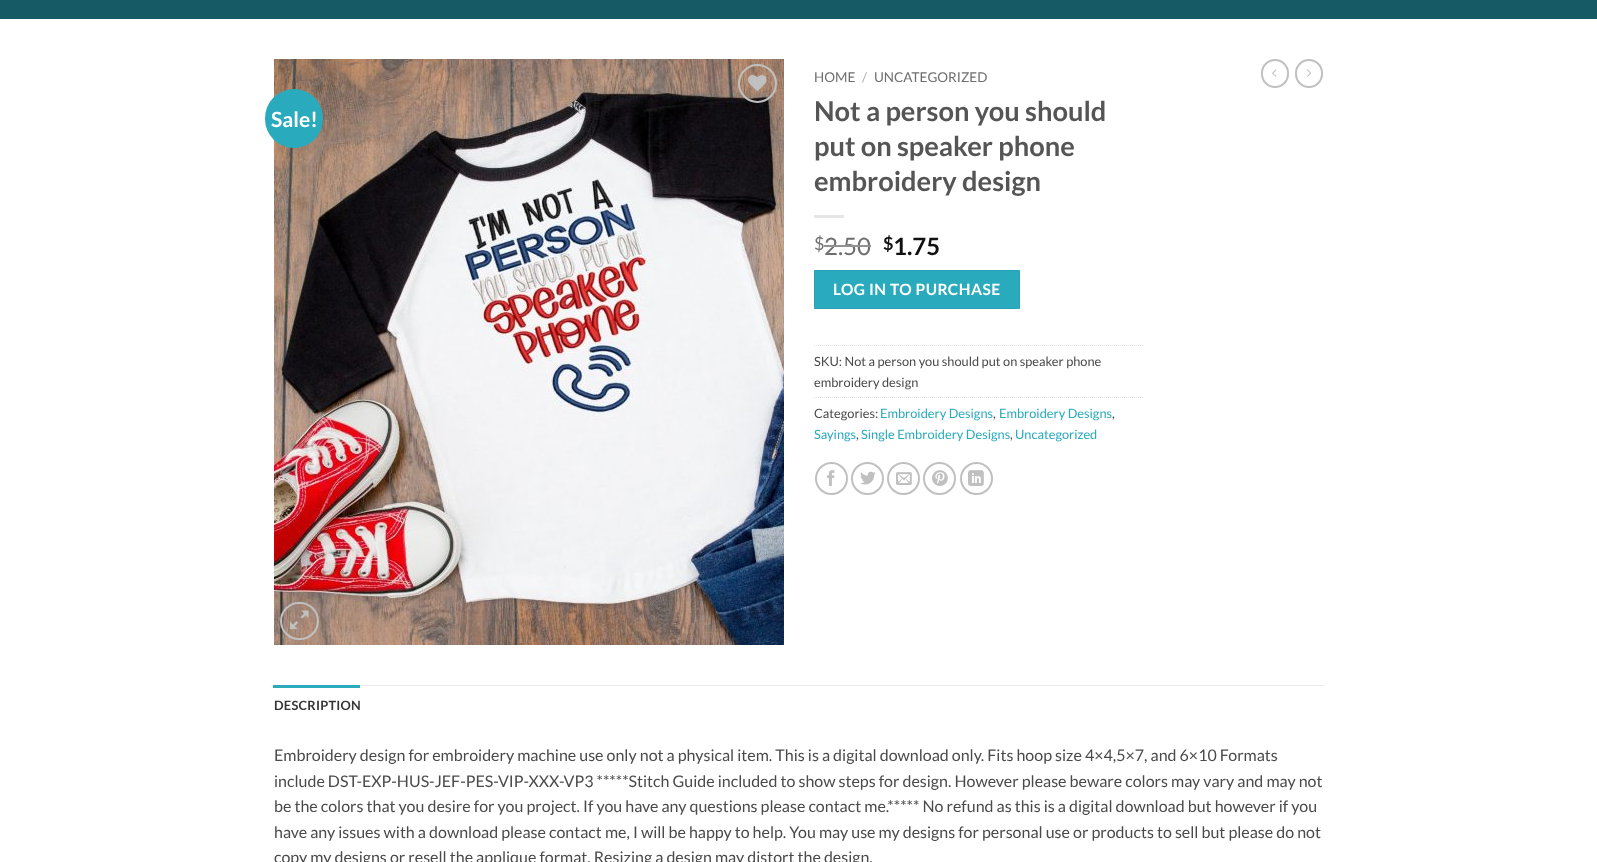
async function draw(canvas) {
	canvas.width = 1597;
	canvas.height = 862;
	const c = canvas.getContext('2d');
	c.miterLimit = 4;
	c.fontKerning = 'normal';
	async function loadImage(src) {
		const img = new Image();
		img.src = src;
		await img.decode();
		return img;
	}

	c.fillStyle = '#fff';
	c.fillRect(0, 0, 1597, 862);
	c.fillStyle = '#155a64';
	c.fillRect(0, 0, 1597, 19);
	c.drawImage(await loadImage('img1.png'), 274, 59, 510, 586);
	c.beginPath();
	c.arc(757.5, 83.5, 18.5, 0, 2 * Math.PI);
	c.strokeStyle = '#c0c0c0';
	c.lineWidth = 2;
	c.stroke();
	c.drawImage(await loadImage('img2.png'), 748, 75, 19, 16);
	c.fillStyle = '#29aabd';
	c.beginPath();
	c.roundRect(265, 89, 58, 59, 29);
	c.fill();
	c.font = 'bold 21px Lato';
	c.fillStyle = '#fff';
	c.fillText('Sale!', 271, 127);
	c.beginPath();
	c.roundRect(281, 603, 37, 36, 18);
	c.stroke();
	c.drawImage(await loadImage('img3.png'), 290, 610, 19, 20);
	c.font = '13.5px Lato';
	c.fillStyle = '#6e6e6e';
	c.fillText('HOME', 814, 82);
	c.fillStyle = '#b2b2b2';
	c.fillText('/', 862, 82);
	c.fillStyle = '#6e6e6e';
	c.fillText('UNCATEGORIZED', 874, 82);
	c.font = 'bold 27.25px Lato';
	c.fillStyle = '#555';
	for (const [text, x, y] of [
		['Not a person you should', 814, 121],
		['put on speaker phone', 814, 156],
		['embroidery design', 814, 191],
	]) {
		c.fillText(text, x, y);
	}
	c.fillStyle = '#e6e6e6';
	c.fillRect(814, 215, 30, 3);
	c.font = '18px Lato';
	c.fillStyle = '#6e6e6e';
	c.fillText('$', 814, 250);
	c.font = '24px Lato';
	c.fillText('2.50', 824, 255);
	c.fillStyle = '#929292';
	c.fillRect(824, 245, 47, 2);
	c.font = 'bold 18px Lato';
	c.fillStyle = '#111';
	c.fillText('$', 883, 250);
	c.font = 'bold 24px Lato';
	c.fillText('1.75', 893, 255);
	c.fillStyle = '#29aabd';
	c.beginPath();
	c.rect(814.5, 270.5, 205, 38);
	c.fill();
	c.strokeStyle = '#27a2b4';
	c.lineWidth = 1;
	c.stroke();
	c.letterSpacing = '0.5px';
	c.font = 'bold 15.5px Lato';
	c.fillStyle = '#fff';
	c.fillText('LOG IN TO PURCHASE', 833, 295);
	c.beginPath();
	c.moveTo(814, 345.5);
	c.lineTo(1144, 345.5);
	c.strokeStyle = '#ddd';
	c.setLineDash([1, 1]);
	c.stroke();
	c.letterSpacing = '0px';
	c.font = '12.8px Lato';
	c.fillStyle = '#4a4a4a';
	c.fillText('SKU: Not a person you should put on speaker phone', 814, 366);
	c.fillText('embroidery design', 814, 387);
	c.beginPath();
	c.moveTo(814, 397.5);
	c.lineTo(1144, 397.5);
	c.stroke();
	c.fillText('Categories:', 814, 418);
	c.fillStyle = '#29aabd';
	c.fillText('Embroidery Designs', 880, 418);
	c.fillStyle = '#4a4a4a';
	c.fillText(',', 993, 418);
	c.fillStyle = '#29aabd';
	c.fillText('Embroidery Designs', 999, 418);
	c.fillStyle = '#4a4a4a';
	c.fillText(',', 1112, 418);
	c.fillStyle = '#29aabd';
	c.fillText('Sayings', 814, 439);
	c.fillStyle = '#4a4a4a';
	c.fillText(',', 856, 439);
	c.fillStyle = '#29aabd';
	c.fillText('Single Embroidery Designs', 861, 439);
	c.fillStyle = '#4a4a4a';
	c.fillText(',', 1010, 439);
	c.fillStyle = '#29aabd';
	c.fillText('Uncategorized', 1015, 439);
	c.beginPath();
	c.arc(831.5, 478.5, 15.5, 0, 2 * Math.PI);
	c.strokeStyle = '#c0c0c0';
	c.lineWidth = 2;
	c.setLineDash([]);
	c.stroke();
	c.drawImage(await loadImage('img4.png'), 827, 470, 8, 16);
	c.beginPath();
	c.arc(867.5, 478.5, 15.5, 0, 2 * Math.PI);
	c.stroke();
	c.drawImage(await loadImage('img5.png'), 860, 471, 16, 14);
	c.beginPath();
	c.arc(903.5, 478.5, 15.5, 0, 2 * Math.PI);
	c.stroke();
	c.drawImage(await loadImage('img6.png'), 896, 472, 16, 13);
	c.beginPath();
	c.arc(939.5, 478.5, 15.5, 0, 2 * Math.PI);
	c.stroke();
	c.drawImage(await loadImage('img7.png'), 932, 470, 16, 16);
	c.beginPath();
	c.arc(976.5, 478.5, 15.5, 0, 2 * Math.PI);
	c.stroke();
	c.drawImage(await loadImage('img8.png'), 968, 470, 16, 16);
	c.beginPath();
	c.roundRect(1262, 60, 26, 27, 13);
	c.stroke();
	c.drawImage(await loadImage('img9.png'), 1272, 69, 5, 8);
	c.beginPath();
	c.roundRect(1296, 60, 26, 27, 13);
	c.stroke();
	c.drawImage(await loadImage('img10.png'), 1307, 69, 4, 8);
	c.fillStyle = '#ececec';
	c.fillRect(360, 685, 964, 1);
	c.fillStyle = '#29aabd';
	c.fillRect(273, 685, 87, 3);
	c.letterSpacing = '0.25px';
	c.font = 'bold 12.8px Lato';
	c.fillStyle = '#363636';
	c.fillText('DESCRIPTION', 274, 710);
	c.letterSpacing = '0px';
	c.font = '16px Lato';
	c.fillStyle = '#4a4a4a';
	for (const [text, x, y] of [
		['Embroidery design for embroidery machine use only not a physical item. This is a digital download only. Fits hoop size 4×4,5×7, and 6×10 Formats', 274, 761],
		['include DST-EXP-HUS-JEF-PES-VIP-XXX-VP3 *****Stitch Guide included to show steps for design. However please beware colors may vary and may not', 274, 787],
		['be the colors that you desire for you project. If you have any questions please contact me.***** No refund as this is a digital download but however if you', 274, 812],
		['have any issues with a download please contact me, I will be happy to help. You may use my designs for personal use or products to sell but please do not', 274, 838],
		['copy my designs or resell the applique format. Resizing a design may distort the design.', 274, 863],
	]) {
		c.fillText(text, x, y);
	}
}

draw(document.querySelector('canvas'));
